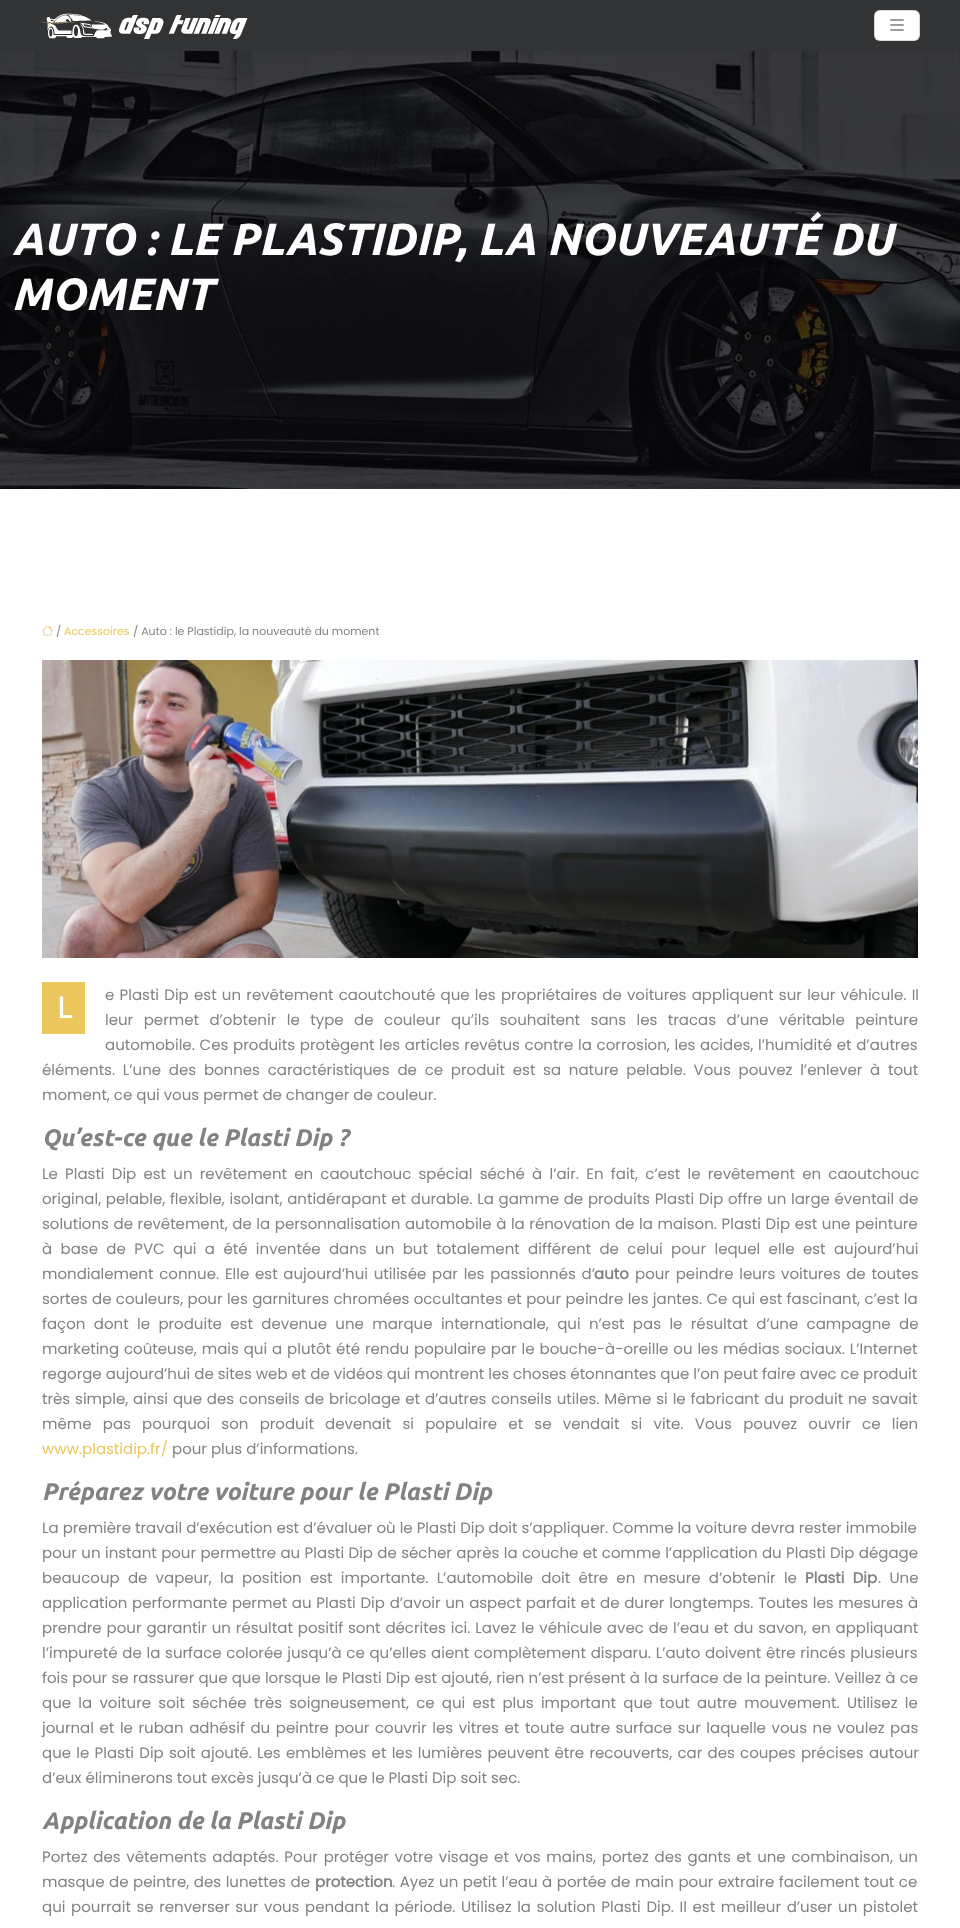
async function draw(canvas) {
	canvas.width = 960;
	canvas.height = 1928;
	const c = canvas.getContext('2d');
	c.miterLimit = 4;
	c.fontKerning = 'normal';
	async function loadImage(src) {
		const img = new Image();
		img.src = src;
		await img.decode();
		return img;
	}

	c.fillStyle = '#fff';
	c.fillRect(0, 0, 960, 1928);
	c.fillStyle = '#323335';
	c.fillRect(0, 0, 960, 51);
	c.drawImage(await loadImage('img1.png'), 41, 13, 207, 26);
	c.fillStyle = '#fff';
	c.beginPath();
	c.roundRect(874, 10, 46, 31, 6);
	c.fill();
	c.beginPath();
	c.roundRect(874.5, 10.5, 45, 30, 5.5);
	c.strokeStyle = '#00000026';
	c.stroke();
	c.drawImage(await loadImage('img2.png'), 890, 19, 14, 12);
	c.drawImage(await loadImage('img3.png'), 0, 51, 960, 438);
	c.font = 'italic bold 45px Ubuntu';
	c.fillText('AUTO : LE PLASTIDIP, LA NOUVEAUTÉ DU', 12, 255);
	c.fillText('MOMENT', 12, 310);
	c.drawImage(await loadImage('img4.png'), 42, 625, 11, 11);
	c.font = '11px Poppins';
	c.fillStyle = '#828282';
	c.fillText('/', 56, 635);
	c.fillStyle = '#ebc75d';
	c.fillText('Accessoires', 64, 635);
	c.fillStyle = '#828282';
	c.fillText('/ Auto : le Plastidip, la nouveauté du moment', 133, 635);
	c.drawImage(await loadImage('img5.png'), 42, 660, 876, 298);
	c.fillStyle = '#ebc75d';
	c.fillRect(42, 982, 43, 52);
	c.font = '500 30px Noto Sans';
	c.fillStyle = '#fff';
	c.fillText('L', 57, 1018);
	c.wordSpacing = '1.25px';
	c.font = '15px Poppins';
	c.fillStyle = '#828282';
	c.fillText('e Plasti Dip est un revêtement caoutchouté que les propriétaires de voitures appliquent sur leur véhicule. Il', 105, 1000);
	c.wordSpacing = '6.5px';
	c.fillText('leur permet d’obtenir le type de couleur qu’ils souhaitent sans les tracas d’une véritable peinture', 105, 1025);
	c.wordSpacing = '0.75px';
	c.fillText('automobile. Ces produits protègent les articles revêtus contre la corrosion, les acides, l’humidité et d’autres', 105, 1050);
	c.wordSpacing = '3.75px';
	c.fillText('éléments. L’une des bonnes caractéristiques de ce produit est sa nature pelable. Vous pouvez l’enlever à tout', 42, 1075);
	c.wordSpacing = '0px';
	c.fillText('moment, ce qui vous permet de changer de couleur.', 42, 1100);
	c.font = 'italic bold 24px Ubuntu';
	c.fillText('Qu’est-ce que le Plasti Dip ?', 42, 1146);
	c.wordSpacing = '3.25px';
	c.font = '15px Poppins';
	c.fillText('Le Plasti Dip est un revêtement en caoutchouc spécial séché à l’air. En fait, c’est le revêtement en caoutchouc', 42, 1179);
	c.wordSpacing = '0.7px';
	c.fillText('original, pelable, flexible, isolant, antidérapant et durable. La gamme de produits Plasti Dip offre un large éventail de', 42, 1204);
	c.wordSpacing = '0.6px';
	c.fillText('solutions de revêtement, de la personnalisation automobile à la rénovation de la maison. Plasti Dip est une peinture', 42, 1229);
	c.wordSpacing = '4.4px';
	c.fillText('à base de PVC qui a été inventée dans un but totalement différent de celui pour lequel elle est aujourd’hui', 42, 1254);
	c.wordSpacing = '1.75px';
	c.fillText('mondialement connue. Elle est aujourd’hui utilisée par les passionnés d’', 42, 1279);
	c.wordSpacing = '0px';
	c.font = 'bold 15px Poppins';
	c.fillText('auto', 594, 1279);
	c.wordSpacing = '1.75px';
	c.font = '15px Poppins';
	c.fillText('pour peindre leurs voitures de toutes', 635, 1279);
	c.wordSpacing = '0.4px';
	c.fillText('sortes de couleurs, pour les garnitures chromées occultantes et pour peindre les jantes. Ce qui est fascinant, c’est la', 42, 1304);
	c.wordSpacing = '4.4px';
	c.fillText('façon dont le produite est devenue une marque internationale, qui n’est pas le résultat d’une campagne de', 42, 1329);
	c.wordSpacing = '0.9px';
	c.fillText('marketing coûteuse, mais qui a plutôt été rendu populaire par le bouche-à-oreille ou les médias sociaux. L’Internet', 42, 1354);
	c.wordSpacing = '0px';
	c.fillText('regorge aujourd’hui de sites web et de vidéos qui montrent les choses étonnantes que l’on peut faire avec ce produit', 42, 1379);
	c.wordSpacing = '0.9px';
	c.fillText('très simple, ainsi que des conseils de bricolage et d’autres conseils utiles. Même si le fabricant du produit ne savait', 42, 1404);
	c.wordSpacing = '7.25px';
	c.fillText('même pas pourquoi son produit devenait si populaire et se vendait si vite. Vous pouvez ouvrir ce lien', 42, 1429);
	c.wordSpacing = '0px';
	c.fillStyle = '#ebc75d';
	c.fillText('www.plastidip.fr/', 42, 1454);
	c.fillStyle = '#828282';
	c.fillText('pour plus d’informations.', 172, 1454);
	c.font = 'italic bold 24px Ubuntu';
	c.fillText('Préparez votre voiture pour le Plasti Dip', 42, 1500);
	c.font = '15px Poppins';
	c.fillText('La première travail d’exécution est d’évaluer où le Plasti Dip doit s’appliquer. Comme la voiture devra rester immobile', 42, 1533);
	c.wordSpacing = '0.4px';
	c.fillText('pour un instant pour permettre au Plasti Dip de sécher après la couche et comme l’application du Plasti Dip dégage', 42, 1558);
	c.wordSpacing = '4.25px';
	c.fillText('beaucoup de vapeur, la position est importante. L’automobile doit être en mesure d’obtenir le', 42, 1583);
	c.font = 'bold 15px Poppins';
	c.fillText('Plasti Dip', 805, 1583);
	c.font = '15px Poppins';
	c.fillText('. Une', 878, 1583);
	c.wordSpacing = '0.7px';
	c.fillText('application performante permet au Plasti Dip d’avoir un aspect parfait et de durer longtemps. Toutes les mesures à', 42, 1608);
	c.wordSpacing = '0.9px';
	c.fillText('prendre pour garantir un résultat positif sont décrites ici. Lavez le véhicule avec de l’eau et du savon, en appliquant', 42, 1633);
	c.wordSpacing = '0.75px';
	c.fillText('l’impureté de la surface colorée jusqu’à ce qu’elles aient complètement disparu. L’auto doivent être rincés plusieurs', 42, 1658);
	c.wordSpacing = '0.2px';
	c.fillText('fois pour se rassurer que que lorsque le Plasti Dip est ajouté, rien n’est présent à la surface de la peinture. Veillez à ce', 42, 1683);
	c.wordSpacing = '3.25px';
	c.fillText('que la voiture soit séchée très soigneusement, ce qui est plus important que tout autre mouvement. Utilisez le', 42, 1708);
	c.wordSpacing = '1.6px';
	c.fillText('journal et le ruban adhésif du peintre pour couvrir les vitres et toute autre surface sur laquelle vous ne voulez pas', 42, 1733);
	c.wordSpacing = '1.25px';
	c.fillText('que le Plasti Dip soit ajouté. Les emblèmes et les lumières peuvent être recouverts, car des coupes précises autour', 42, 1758);
	c.wordSpacing = '0px';
	c.fillText('d’eux éliminerons tout excès jusqu’à ce que le Plasti Dip soit sec.', 42, 1783);
	c.font = 'italic bold 24px Ubuntu';
	c.fillText('Application de la Plasti Dip', 42, 1829);
	c.wordSpacing = '1.8px';
	c.font = '15px Poppins';
	c.fillText('Portez des vêtements adaptés. Pour protéger votre visage et vos mains, portez des gants et une combinaison, un', 42, 1862);
	c.wordSpacing = '0.6px';
	c.fillText('masque de peintre, des lunettes de', 42, 1887);
	c.wordSpacing = '0px';
	c.font = 'bold 15px Poppins';
	c.fillText('protection', 315, 1887);
	c.wordSpacing = '0.6px';
	c.font = '15px Poppins';
	c.fillText('. Ayez un petit l’eau à portée de main pour extraire facilement tout ce', 392, 1887);
	c.wordSpacing = '1.6px';
	c.fillText('qui pourrait se renverser sur vous pendant la période. Utilisez la solution Plasti Dip. Il est meilleur d’user un pistolet', 42, 1912);
}

draw(document.querySelector('canvas'));
